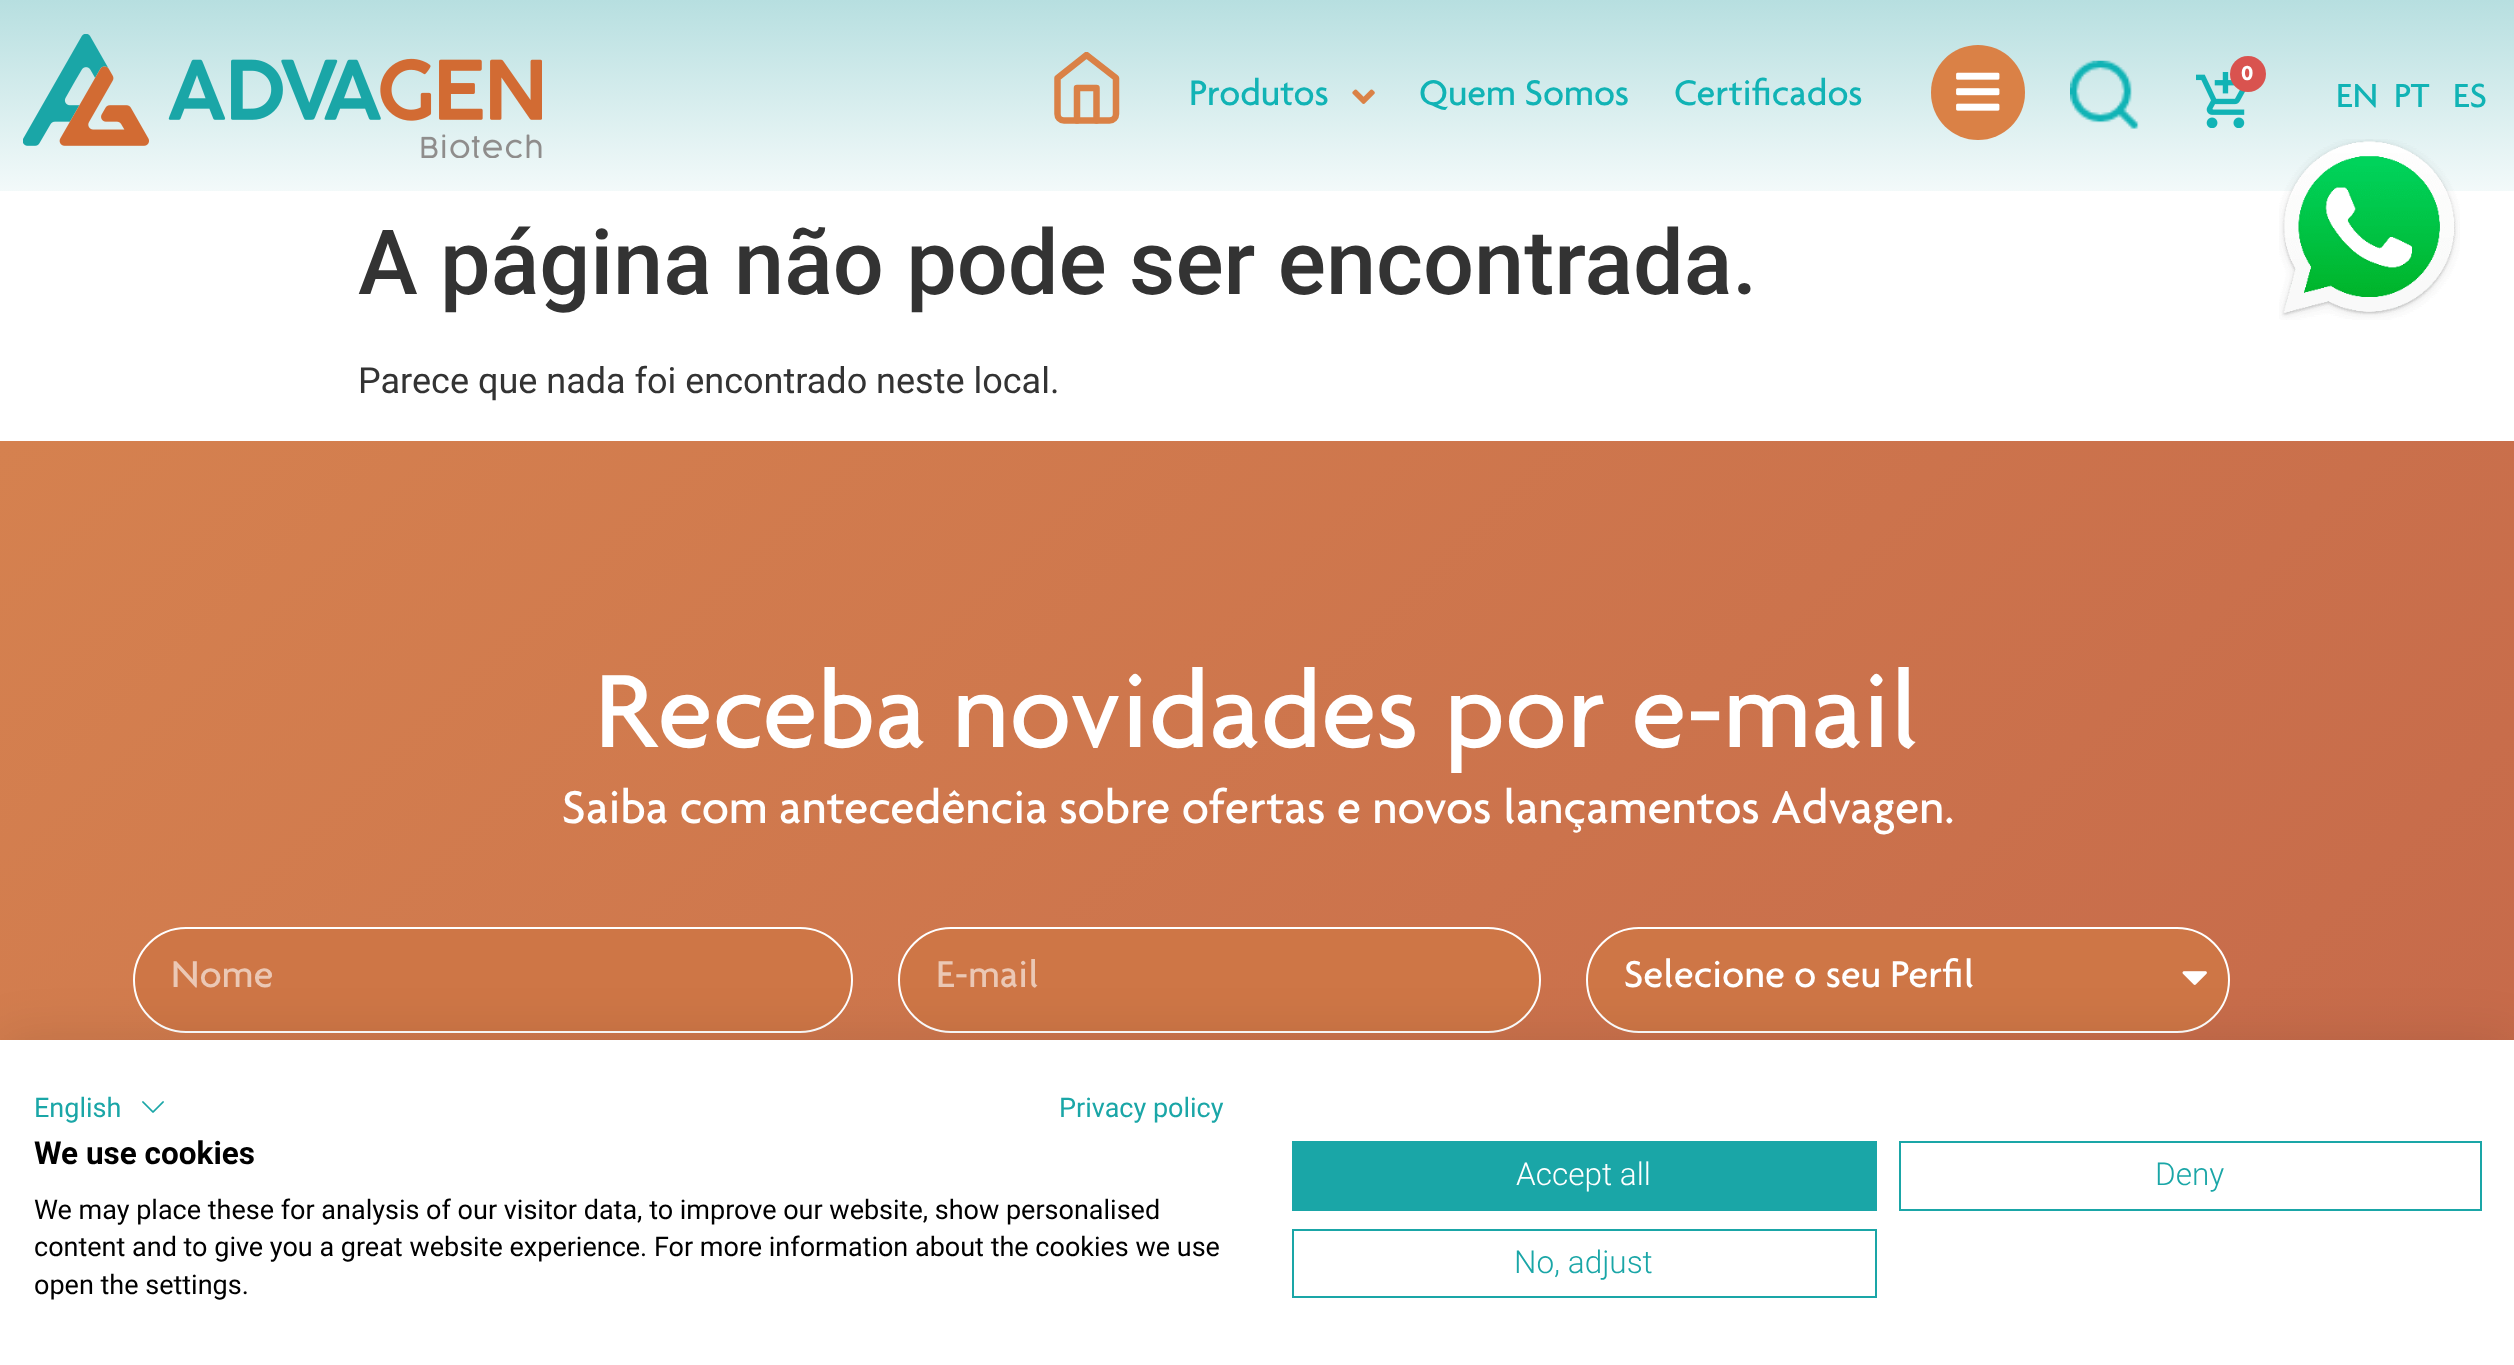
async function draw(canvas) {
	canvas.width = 2514;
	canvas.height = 1365;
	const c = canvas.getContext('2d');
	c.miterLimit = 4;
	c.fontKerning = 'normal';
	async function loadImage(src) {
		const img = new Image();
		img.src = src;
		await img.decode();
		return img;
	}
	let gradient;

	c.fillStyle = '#fff';
	c.fillRect(0, 0, 2514, 1365);
	gradient = c.createLinearGradient(1258, 0, 1258, 230);
	gradient.addColorStop(0, '#b7dfe0');
	gradient.addColorStop(1, '#fff');
	c.fillStyle = gradient;
	c.fillRect(0, 0, 2514, 191);
	c.drawImage(await loadImage('img1.png'), 23, 34, 519, 124);
	c.save();
	c.beginPath();
	c.rect(1051, 52, 72, 72);
	c.clip();
	c.beginPath();
	c.moveTo(1057.5, 78);
	c.lineTo(1086.5, 55);
	c.lineTo(1116, 78);
	c.lineTo(1116, 114);
	c.bezierCurveTo(1116, 117.5, 1113.5, 120.5, 1109.5, 120.5);
	c.lineTo(1064, 120.5);
	c.bezierCurveTo(1060, 120.5, 1057.5, 117.5, 1057.5, 114);
	c.closePath();
	c.strokeStyle = '#da8146';
	c.lineWidth = 6.5;
	c.lineCap = 'round';
	c.lineJoin = 'round';
	c.stroke();
	c.restore();
	c.beginPath();
	c.moveTo(1077, 120.5);
	c.lineTo(1077, 88);
	c.lineTo(1096.5, 88);
	c.lineTo(1096.5, 120.5);
	c.strokeStyle = '#da8146';
	c.lineWidth = 6.5;
	c.lineCap = 'round';
	c.lineJoin = 'round';
	c.stroke();
	c.fillStyle = '#da8146';
	c.beginPath();
	c.roundRect(1931, 45, 94, 95, 47);
	c.fill();
	c.drawImage(await loadImage('img2.png'), 1956, 72, 44, 39);
	c.drawImage(await loadImage('img3.png'), 2070, 60, 69, 69);
	c.drawImage(await loadImage('img4.png'), 2196, 72, 50, 56);
	c.fillStyle = '#d9534f';
	c.beginPath();
	c.arc(2248, 74, 18, 0, 2 * Math.PI);
	c.fill();
	c.font = 'bold 22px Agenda';
	c.fillStyle = '#fff';
	c.fillText('0', 2241, 80);
	c.font = '500 38.25px Agenda';
	c.fillStyle = '#11b3b5';
	c.fillText('Produtos', 1189, 105);
	c.drawImage(await loadImage('img5.png'), 1352, 89, 23, 15);
	c.fillText('Quem Somos', 1419, 105);
	c.fillText('Certificados', 1674, 105);
	c.font = '500 36px Agenda';
	for (const [text, x, y] of [
		['EN', 2336, 107],
		['PT', 2394, 107],
		['ES', 2453, 107],
	]) {
		c.fillText(text, x, y);
	}
	c.drawImage(await loadImage('img6.png'), 2279, 139, 181, 181);
	c.font = '500 90px Roboto';
	c.fillStyle = '#333';
	c.fillText('A página não pode ser encontrada.', 358, 294);
	c.font = '36px Roboto';
	c.fillText('Parece que nada foi encontrado neste local.', 358, 393);
	gradient = c.createLinearGradient(107, 337, 2408, 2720);
	gradient.addColorStop(0, '#d5814f');
	gradient.addColorStop(1, '#bf5f48');
	c.fillStyle = gradient;
	c.fillRect(0, 441, 2514, 599);
	c.font = '500 112.5px Agenda';
	c.fillStyle = '#fff';
	c.fillText('Receba novidades por e-mail', 595, 747);
	c.font = '500 49.5px Agenda';
	c.fillText('Saiba com antecedência sobre ofertas e novos lançamentos Advagen.', 562, 823);
	c.fillStyle = '#ce7646';
	c.beginPath();
	c.roundRect(134, 928, 718, 104, 52);
	c.fill();
	c.strokeStyle = '#fff';
	c.lineWidth = 2;
	c.lineJoin = 'miter';
	c.stroke();
	c.font = '500 40.5px Agenda';
	c.fillStyle = '#ebc8b5';
	c.fillText('Nome', 171, 987);
	c.fillStyle = '#ce7646';
	c.beginPath();
	c.roundRect(899, 928, 641, 104, 52);
	c.fill();
	c.stroke();
	c.save();
	c.beginPath();
	c.rect(936, 959, 567, 40);
	c.clip();
	c.fillStyle = '#ebc8b5';
	c.fillText('E-mail', 936, 987);
	c.restore();
	c.beginPath();
	c.roundRect(1587, 928, 642, 104, 52);
	c.fill();
	c.stroke();
	c.fillStyle = '#fff';
	c.fillText('Selecione o seu Perfil', 1624, 987);
	c.drawImage(await loadImage('img7.png'), 2182, 971, 25, 14);
	c.fillStyle = '#0000001a';
	c.filter = 'blur(27px)';
	c.beginPath();
	c.rect(0, 1040, 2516, 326);
	c.fill();
	c.filter = 'none';
	c.fillStyle = '#fff';
	c.fillRect(0, 1040, 2514, 325);
	c.font = '27px Roboto';
	c.fillStyle = '#1aa6a7';
	c.fillText('English', 34, 1117);
	c.drawImage(await loadImage('img8.png'), 142, 1101, 22, 12);
	c.fillText('Privacy policy', 1059, 1117);
	c.font = 'bold 31.5px Roboto';
	c.fillStyle = '#000';
	c.fillText('We use cookies', 34, 1164);
	c.font = '27px Roboto';
	for (const [text, x, y] of [
		['We may place these for analysis of our visitor data, to improve our website, show personalised', 34, 1219],
		['content and to give you a great website experience. For more information about the cookies we use', 34, 1256],
		['open the settings.', 34, 1294],
	]) {
		c.fillText(text, x, y);
	}
	c.fillStyle = '#1aa6a7';
	c.fillRect(1292, 1141, 585, 70);
	c.font = '300 31.5px Roboto';
	c.fillStyle = '#fff';
	c.fillText('Accept all', 1516, 1185);
	c.strokeStyle = '#1aa6a7';
	c.strokeRect(1900, 1142, 581, 68);
	c.fillStyle = '#1aa6a7';
	c.fillText('Deny', 2155, 1185);
	c.strokeRect(1293, 1230, 583, 67);
	c.fillText('No, adjust', 1514, 1273);
}

draw(document.querySelector('canvas'));
